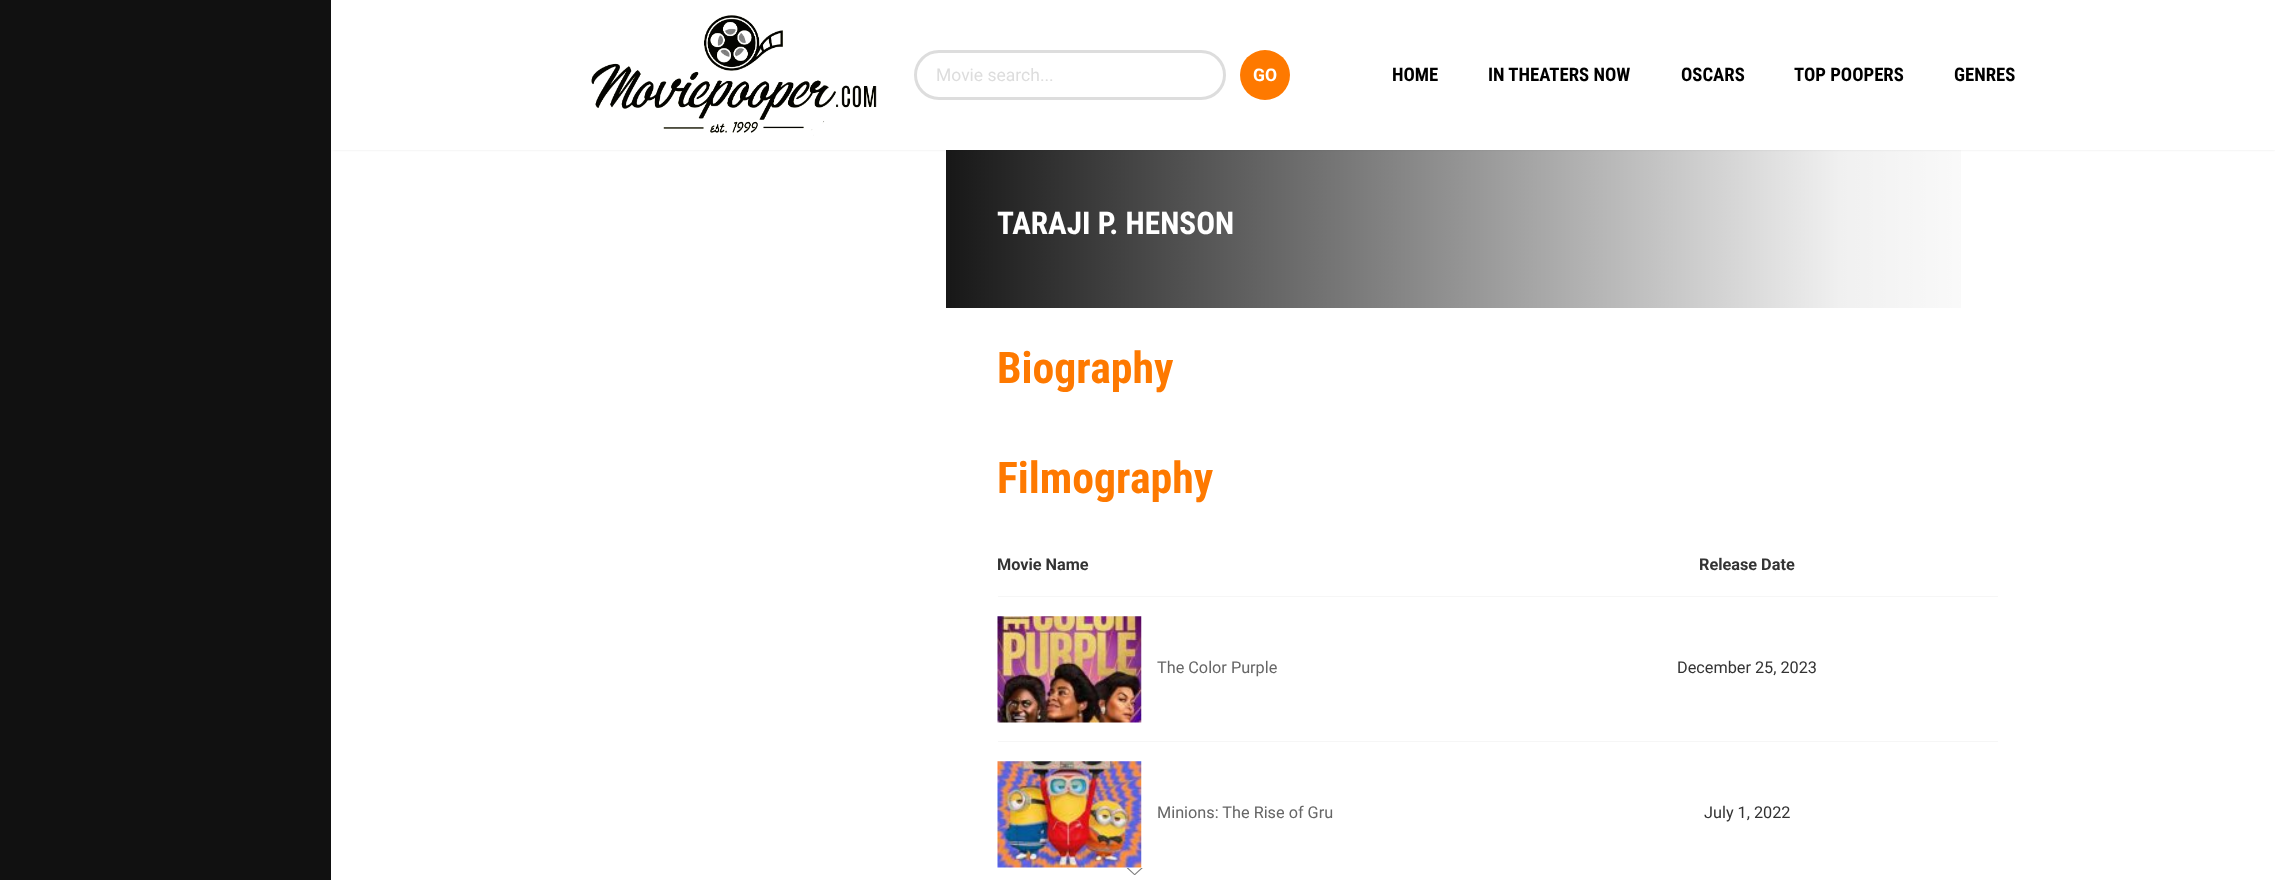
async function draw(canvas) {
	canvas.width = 2275;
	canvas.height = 880;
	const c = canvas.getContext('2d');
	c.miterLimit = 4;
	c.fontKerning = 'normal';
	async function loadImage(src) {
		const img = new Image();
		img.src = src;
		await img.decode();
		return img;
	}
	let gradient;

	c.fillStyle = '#fff';
	c.fillRect(0, 0, 2275, 880);
	c.save();
	c.beginPath();
	c.moveTo(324, 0);
	c.lineTo(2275, 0);
	c.lineTo(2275, 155);
	c.lineTo(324, 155);
	c.closePath();
	c.moveTo(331, 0);
	c.lineTo(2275, 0);
	c.lineTo(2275, 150);
	c.lineTo(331, 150);
	c.closePath();
	c.clip('evenodd');
	c.fillStyle = '#000';
	c.filter = 'blur(2.5px)';
	c.beginPath();
	c.rect(333, -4, 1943, 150);
	c.fill();
	c.filter = 'none';
	c.restore();
	c.fillStyle = '#111';
	c.fillRect(0, 0, 331, 880);
	c.drawImage(await loadImage('img1.png'), 591, 15, 286, 121);
	c.beginPath();
	c.roundRect(915.5, 51.5, 309, 47, 23.5);
	c.strokeStyle = '#ddd';
	c.lineWidth = 3;
	c.stroke();
	c.font = '17.5px Roboto';
	c.fillStyle = '#ddd';
	c.fillText('Movie search...', 936, 81);
	c.fillStyle = '#fe7900';
	c.beginPath();
	c.arc(1265, 75, 25, 0, 2 * Math.PI);
	c.fill();
	c.font = 'bold 17.5px Roboto';
	c.fillStyle = '#fff';
	c.fillText('GO', 1253, 81);
	c.font = 'bold 18.75px Roboto Condensed';
	c.fillStyle = '#000';
	for (const [text, x, y] of [
		['HOME', 1392, 81],
		['IN THEATERS NOW', 1488, 81],
		['OSCARS', 1681, 81],
		['TOP POOPERS', 1794, 81],
		['GENRES', 1954, 81],
	]) {
		c.fillText(text, x, y);
	}
	gradient = c.createLinearGradient(946, 229, 1998, 229);
	gradient.addColorStop(0, '#000000e8');
	gradient.addColorStop(0.85, '#0000000f');
	gradient.addColorStop(1, '#00000003');
	c.fillStyle = gradient;
	c.fillRect(946, 150, 1015, 158);
	c.font = 'bold 31.25px Roboto Condensed';
	c.fillStyle = '#fff';
	c.fillText('TARAJI P. HENSON', 997, 234);
	c.font = 'bold 43.75px Roboto Condensed';
	c.fillStyle = '#fe7900';
	c.fillText('Biography', 997, 383);
	c.fillText('Filmography', 997, 493);
	c.fillStyle = '#f6f6f6';
	c.fillRect(998, 596, 1000, 1);
	c.font = 'bold 16.25px Roboto';
	c.fillStyle = '#333';
	c.fillText('Movie Name', 997, 570);
	c.fillText('Release Date', 1699, 570);
	c.fillStyle = '#f6f6f6';
	c.fillRect(998, 741, 1000, 1);
	c.drawImage(await loadImage('img2.png'), 997, 616, 145, 107);
	c.font = '16.25px Roboto';
	c.fillStyle = '#666';
	c.fillText('The Color Purple', 1157, 673);
	c.fillStyle = '#333';
	c.fillText('December 25, 2023', 1677, 673);
	c.drawImage(await loadImage('img3.png'), 997, 761, 145, 107);
	c.fillStyle = '#666';
	c.fillText('Minions: The Rise of Gru', 1157, 818);
	c.fillStyle = '#333';
	c.fillText('July 1, 2022', 1704, 818);
	c.drawImage(await loadImage('img4.png'), 1126, 868, 17, 7);
}

draw(document.querySelector('canvas'));
